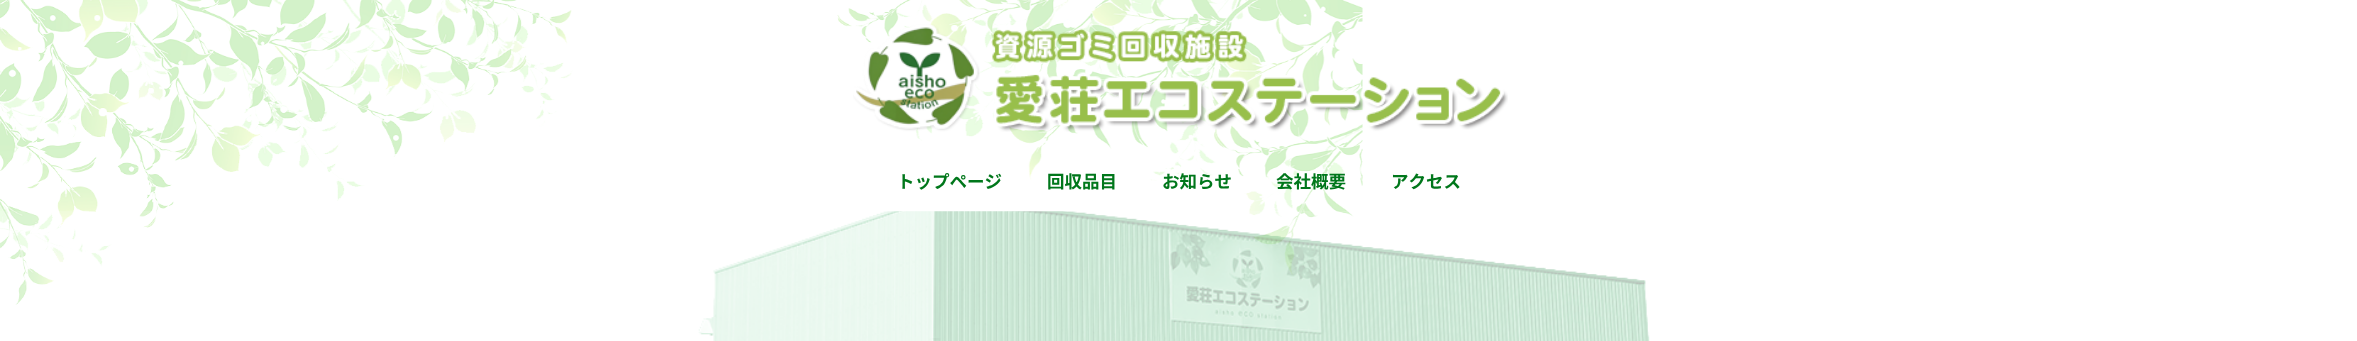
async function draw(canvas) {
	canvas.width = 2357;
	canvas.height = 341;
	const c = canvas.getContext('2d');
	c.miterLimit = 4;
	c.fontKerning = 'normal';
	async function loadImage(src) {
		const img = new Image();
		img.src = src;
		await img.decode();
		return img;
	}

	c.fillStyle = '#fff';
	c.fillRect(0, 0, 2357, 341);
	c.drawImage(await loadImage('img1.png'), 0, 0, 1363, 305);
	c.drawImage(await loadImage('img2.png'), 853, 24, 655, 108);
	c.font = 'bold 17.5px Noto Sans JP';
	c.fillStyle = '#00771b';
	for (const [text, x, y] of [
		['トップページ', 897, 188],
		['回収品目', 1047, 188],
		['お知らせ', 1162, 188],
		['会社概要', 1276, 188],
		['アクセス', 1391, 188],
	]) {
		c.fillText(text, x, y);
	}
	c.drawImage(await loadImage('img3.png'), 698, 211, 952, 130);
	c.fillStyle = '#ffffff26';
	c.fillRect(0, 211, 1649, 130);
}

draw(document.querySelector('canvas'));
